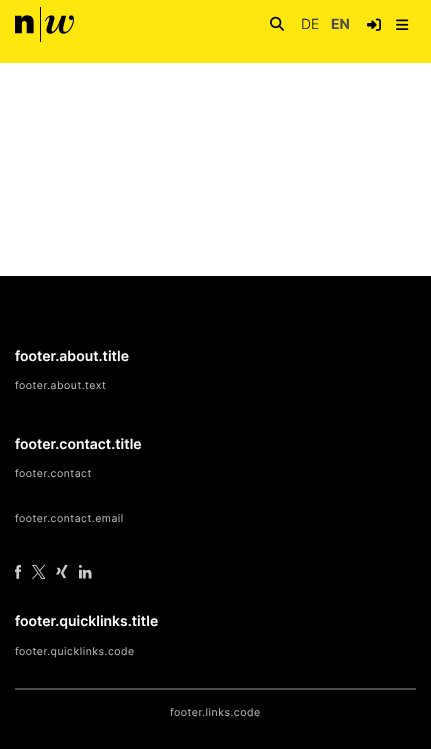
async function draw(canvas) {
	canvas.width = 431;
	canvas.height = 749;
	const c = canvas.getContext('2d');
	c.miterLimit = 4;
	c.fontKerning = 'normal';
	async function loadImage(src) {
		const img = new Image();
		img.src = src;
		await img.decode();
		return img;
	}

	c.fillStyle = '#fff';
	c.fillRect(0, 0, 431, 749);
	c.fillStyle = '#fde70e';
	c.fillRect(0, 0, 431, 63);
	c.drawImage(await loadImage('img1.png'), 15, 7, 59, 35);
	c.drawImage(await loadImage('img2.png'), 270, 16, 14, 15);
	c.font = '300 14px Inter';
	c.fillStyle = '#000';
	c.fillText('DE', 301, 29);
	c.font = 'bold 14px Inter';
	c.fillStyle = '#4c4c4c';
	c.fillText('EN', 331, 29);
	c.drawImage(await loadImage('img3.png'), 367, 18, 14, 13);
	c.drawImage(await loadImage('img4.png'), 396, 19, 13, 11);
	c.fillStyle = '#000';
	c.fillRect(0, 276, 431, 473);
	c.font = '600 14px Inter';
	c.fillStyle = '#fff';
	c.fillText('footer.about.title', 15, 361);
	c.letterSpacing = '0.5px';
	c.font = '10.5px Inter';
	c.fillStyle = '#bebdb9';
	c.fillText('footer.about.text', 15, 389);
	c.letterSpacing = '0px';
	c.font = '600 14px Inter';
	c.fillStyle = '#fff';
	c.fillText('footer.contact.title', 15, 449);
	c.letterSpacing = '0.5px';
	c.font = '10.5px Inter';
	c.fillStyle = '#bebdb9';
	c.fillText('footer.contact', 15, 477);
	c.fillText('footer.contact.email', 15, 522);
	c.drawImage(await loadImage('img5.png'), 15, 565, 6, 14);
	c.drawImage(await loadImage('img6.png'), 32, 565, 13, 14);
	c.drawImage(await loadImage('img7.png'), 56, 565, 12, 14);
	c.drawImage(await loadImage('img8.png'), 79, 565, 13, 14);
	c.letterSpacing = '0px';
	c.font = '600 14px Inter';
	c.fillStyle = '#fff';
	c.fillText('footer.quicklinks.title', 15, 626);
	c.letterSpacing = '0.5px';
	c.font = '10.5px Inter';
	c.fillStyle = '#bebdb9';
	c.fillText('footer.quicklinks.code', 15, 655);
	c.fillStyle = '#4c4c4c';
	c.fillRect(15, 688, 401, 2);
	c.fillStyle = '#bebdb9';
	c.fillText('footer.links.code', 170, 716);
}

draw(document.querySelector('canvas'));
